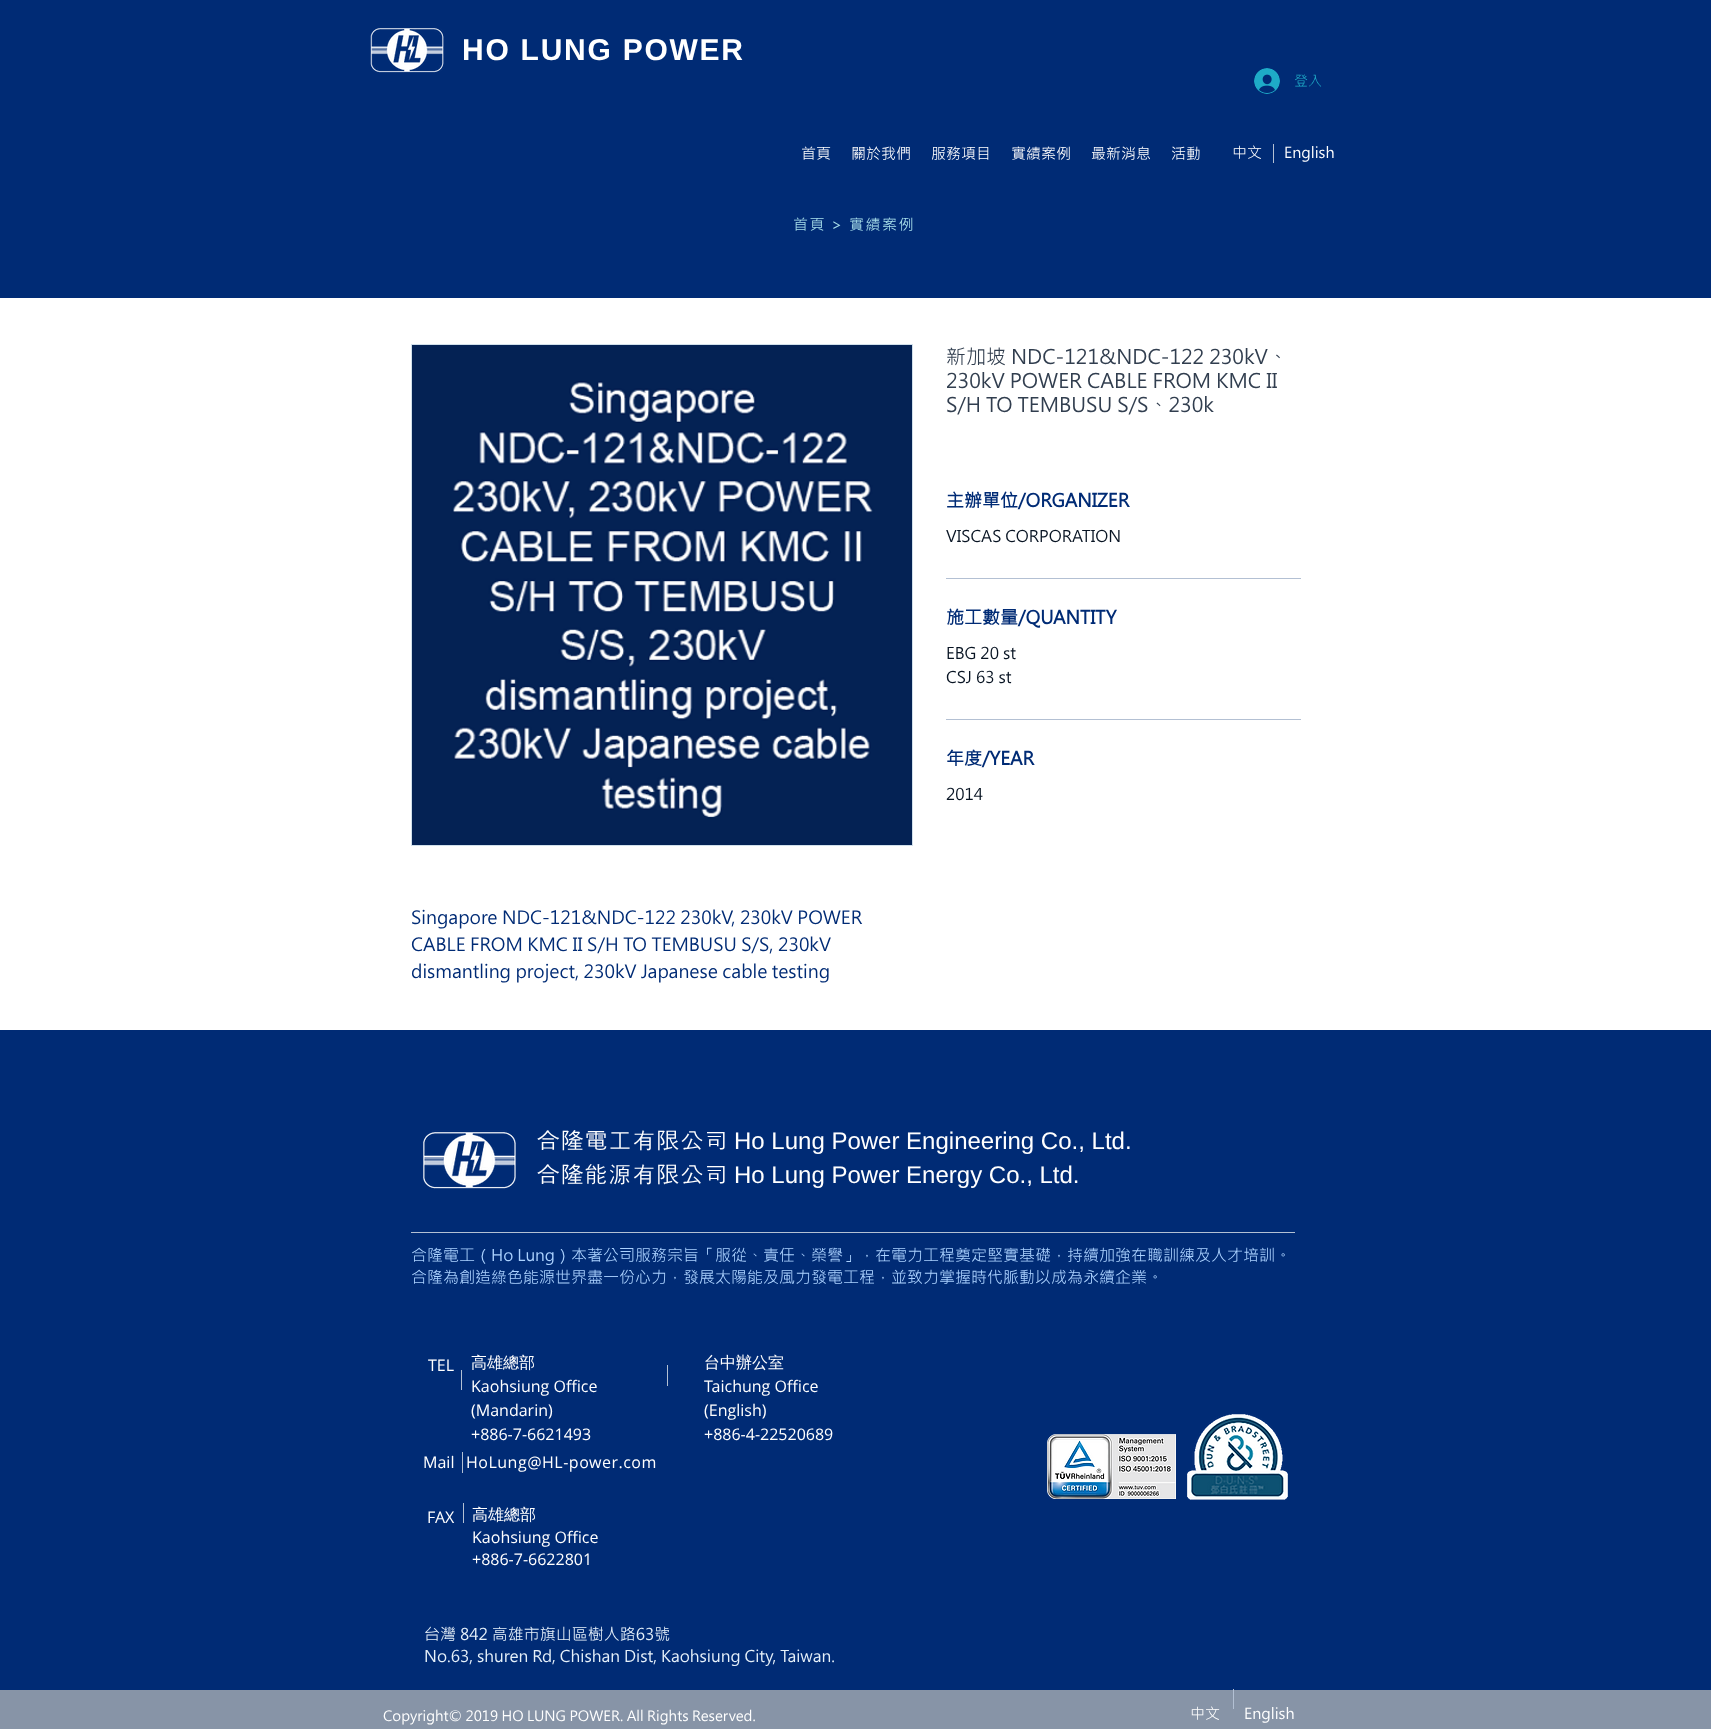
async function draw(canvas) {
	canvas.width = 1711;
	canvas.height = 1729;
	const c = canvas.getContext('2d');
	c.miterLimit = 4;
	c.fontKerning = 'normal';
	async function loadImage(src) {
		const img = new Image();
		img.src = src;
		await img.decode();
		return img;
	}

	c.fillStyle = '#fff';
	c.fillRect(0, 0, 1711, 1729);
	c.fillStyle = '#002b75';
	c.fillRect(0, 0, 1711, 298);
	c.drawImage(await loadImage('img1.png'), 370, 28, 74, 45);
	c.letterSpacing = '1.75px';
	c.font = 'bold 30px Liberation Sans';
	c.fillStyle = '#fff';
	c.fillText('HO LUNG POWER', 462, 60);
	c.drawImage(await loadImage('img2.png'), 1254, 68, 26, 26);
	c.letterSpacing = '0px';
	c.font = '14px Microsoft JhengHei';
	c.fillStyle = '#1eabc7';
	c.fillText('登入', 1294, 86);
	c.font = '15px Microsoft JhengHei';
	c.fillStyle = '#fff';
	for (const [text, x, y] of [
		['首頁', 801, 159],
		['關於我們', 851, 159],
		['服務項目', 931, 159],
		['實績案例', 1011, 159],
		['最新消息', 1091, 159],
		['活動', 1171, 159],
		['中文', 1232, 158],
	]) {
		c.fillText(text, x, y);
	}
	c.fillStyle = '#b3c0d3';
	c.fillRect(1273, 144, 1, 19);
	c.fillStyle = '#fff';
	c.fillText('English', 1284, 158);
	c.letterSpacing = '1.5px';
	c.fillStyle = '#a9e1ec';
	c.fillText('首頁 > 實績案例', 793, 230);
	c.letterSpacing = '0px';
	c.font = '20px Microsoft JhengHei';
	c.fillStyle = '#313e4f';
	for (const [text, x, y] of [
		['新加坡 NDC-121&NDC-122 230kV、', 946, 364],
		['230kV POWER CABLE FROM KMC II', 946, 388],
		['S/H TO TEMBUSU S/S、230k', 946, 412],
	]) {
		c.fillText(text, x, y);
	}
	c.fillStyle = '#b3c0d3';
	c.fillRect(946, 578, 355, 1);
	c.font = 'bold 18px Microsoft JhengHei';
	c.fillStyle = '#002b75';
	c.fillText('主辦單位/ORGANIZER', 946, 507);
	c.font = '16px Microsoft JhengHei';
	c.fillStyle = '#081423';
	c.fillText('VISCAS CORPORATION', 946, 542);
	c.fillStyle = '#b3c0d3';
	c.fillRect(946, 719, 355, 1);
	c.font = 'bold 18px Microsoft JhengHei';
	c.fillStyle = '#002b75';
	c.fillText('施工數量/QUANTITY', 946, 624);
	c.font = '16px Microsoft JhengHei';
	c.fillStyle = '#081423';
	c.fillText('EBG 20 st', 946, 659);
	c.fillText('CSJ 63 st', 946, 683);
	c.font = 'bold 18px Microsoft JhengHei';
	c.fillStyle = '#002b75';
	c.fillText('年度/YEAR', 946, 765);
	c.font = '16px Microsoft JhengHei';
	c.fillStyle = '#081423';
	c.fillText('2014', 946, 800);
	c.strokeStyle = '#d1e0eb';
	c.strokeRect(411.5, 344.5, 501, 501);
	c.drawImage(await loadImage('img3.png'), 412, 345, 500, 500);
	c.font = '18px Microsoft JhengHei';
	c.fillStyle = '#002b75';
	for (const [text, x, y] of [
		['Singapore NDC-121&NDC-122 230kV, 230kV POWER', 411, 924],
		['CABLE FROM KMC II S/H TO TEMBUSU S/S, 230kV', 411, 951],
		['dismantling project, 230kV Japanese cable testing', 411, 978],
	]) {
		c.fillText(text, x, y);
	}
	c.fillRect(0, 1030, 1711, 660);
	c.drawImage(await loadImage('img4.png'), 423, 1130, 93, 59);
	c.font = '24px Dotum';
	c.fillStyle = '#fff';
	c.fillText('合隆電工有限公司', 536, 1149);
	c.font = '24px Liberation Sans';
	c.fillText('Ho Lung Power Engineering Co., Ltd.', 734, 1149);
	c.font = '24px Dotum';
	c.fillText('合隆能源有限公司', 536, 1183);
	c.font = '24px Liberation Sans';
	c.fillText('Ho Lung Power Energy Co., Ltd.', 734, 1183);
	c.fillStyle = '#b3c0d3';
	c.fillRect(411, 1232, 884, 1);
	c.font = '16px Microsoft JhengHei';
	c.fillStyle = '#abd2ff';
	c.fillText('合隆電工（Ho Lung）本著公司服務宗旨「服從、責任、榮譽」，在電力工程奠定堅實基礎，持續加強在職訓練及人才培訓。', 411, 1261);
	c.fillText('合隆為創造綠色能源世界盡一份心力，發展太陽能及風力發電工程，並致力掌握時代脈動以成為永續企業。', 411, 1283);
	c.font = '16px Open Sans';
	c.fillStyle = '#fff';
	c.fillText('TEL', 428, 1371);
	c.fillStyle = '#b3c0d3';
	c.fillRect(461, 1370, 1, 20);
	c.font = '500 16px WenQuanYi Zen Hei';
	c.fillStyle = '#fff';
	c.fillText('高雄總部', 471, 1368);
	c.font = '16px Open Sans';
	for (const [text, x, y] of [
		['Kaohsiung Office', 471, 1392],
		['(Mandarin)', 471, 1416],
		['+886-7-6621493', 471, 1440],
	]) {
		c.fillText(text, x, y);
	}
	c.fillStyle = '#b3c0d3';
	c.fillRect(667, 1365, 1, 21);
	c.font = '500 16px WenQuanYi Zen Hei';
	c.fillStyle = '#fff';
	c.fillText('台中辦公室', 704, 1368);
	c.font = '16px Open Sans';
	for (const [text, x, y] of [
		['Taichung Office', 704, 1392],
		['(English)', 704, 1416],
		['+886-4-22520689', 704, 1440],
		['FAX', 427, 1523],
	]) {
		c.fillText(text, x, y);
	}
	c.fillStyle = '#b3c0d3';
	c.fillRect(463, 1503, 1, 20);
	c.font = '500 16px WenQuanYi Zen Hei';
	c.fillStyle = '#fff';
	c.fillText('高雄總部', 472, 1520);
	c.font = '16px Open Sans';
	c.fillText('Kaohsiung Office', 472, 1543);
	c.fillText('+886-7-6622801', 472, 1565);
	c.font = '16px Microsoft JhengHei';
	c.fillStyle = '#e6f1fa';
	c.fillText('台灣 842 高雄市旗山區樹人路63號', 424, 1640);
	c.fillText('No.63, shuren Rd, Chishan Dist, Kaohsiung City, Taiwan.', 424, 1662);
	c.drawImage(await loadImage('img5.png'), 1047, 1434, 129, 65);
	c.drawImage(await loadImage('img6.png'), 1187, 1414, 101, 86);
	c.font = '16px Open Sans';
	c.fillStyle = '#fff';
	c.fillText('Mail', 423, 1468);
	c.fillStyle = '#b3c0d3';
	c.fillRect(462, 1452, 1, 21);
	c.letterSpacing = '0.5px';
	c.fillStyle = '#fff';
	c.fillText('HoLung@HL-power.com', 466, 1468);
	c.fillStyle = '#8794a7';
	c.fillRect(0, 1690, 1711, 39);
	c.fillStyle = '#b3c0d3';
	c.fillRect(1233, 1689, 1, 20);
	c.letterSpacing = '0px';
	c.font = '14px Microsoft JhengHei';
	c.fillStyle = '#fff';
	c.fillText('Copyright© 2019 HO LUNG POWER. All Rights Reserved.', 383, 1721);
	c.font = '15px Microsoft JhengHei';
	c.fillText('中文', 1190, 1719);
	c.fillText('English', 1244, 1719);
}

draw(document.querySelector('canvas'));
